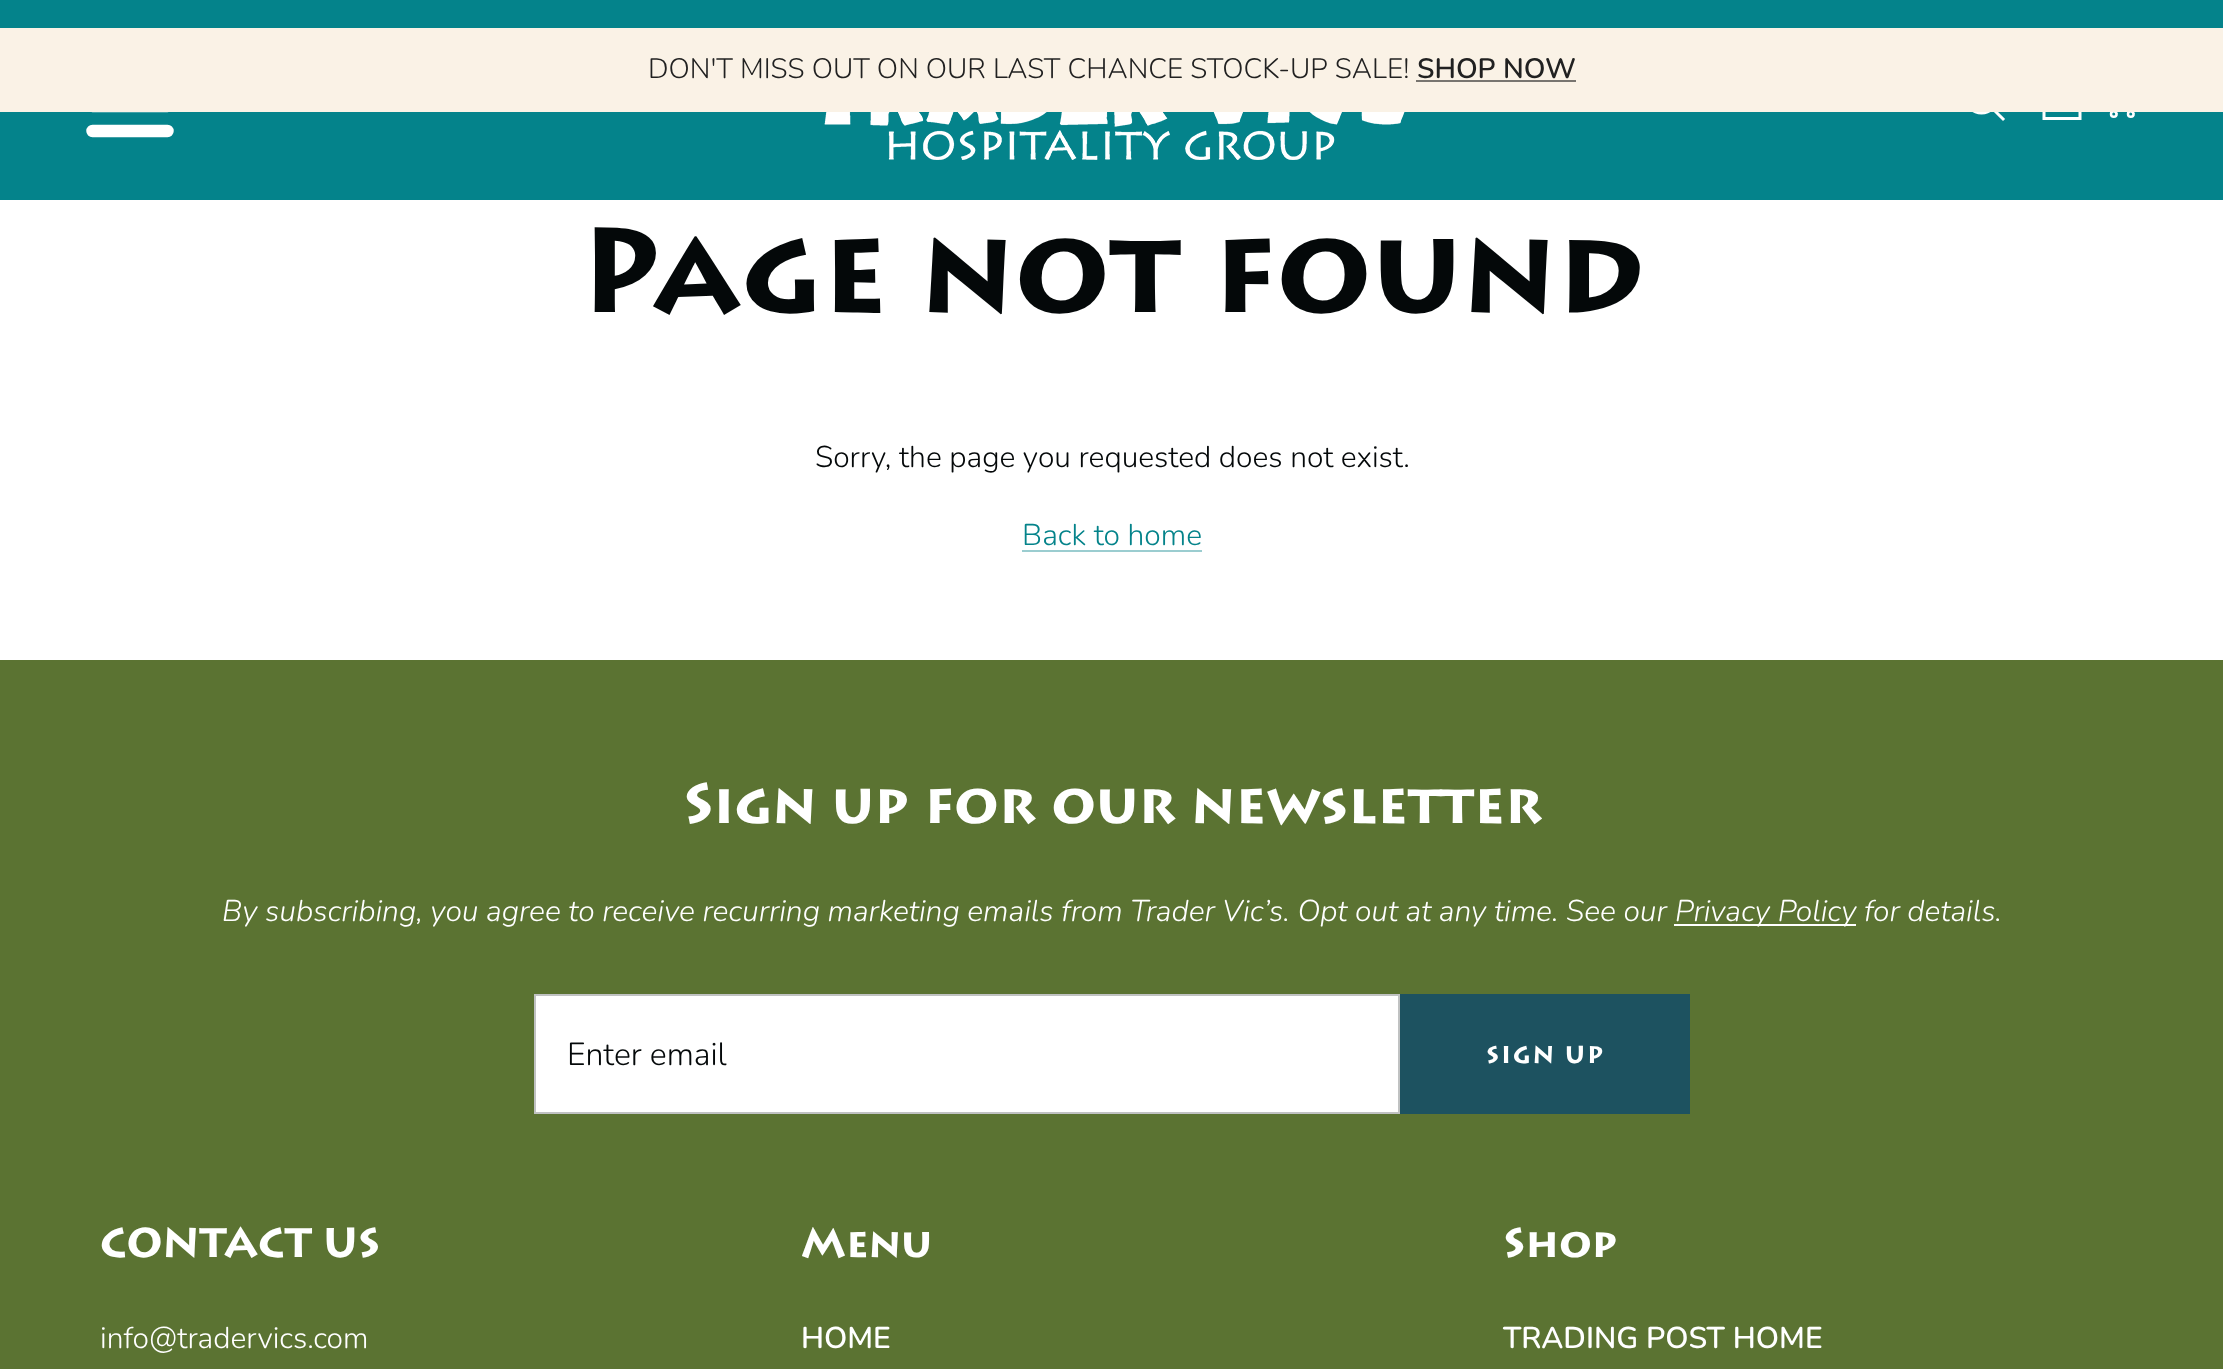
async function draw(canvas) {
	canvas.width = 2223;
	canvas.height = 1369;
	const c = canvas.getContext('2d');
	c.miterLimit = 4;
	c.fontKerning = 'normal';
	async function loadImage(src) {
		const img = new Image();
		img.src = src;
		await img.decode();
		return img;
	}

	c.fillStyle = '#fff';
	c.fillRect(0, 0, 2223, 1369);
	c.fillStyle = '#04838b';
	c.fillRect(0, 0, 2223, 200);
	c.beginPath();
	c.moveTo(92.5, 106);
	c.lineTo(167.5, 106);
	c.moveTo(92.5, 81);
	c.lineTo(167.5, 81);
	c.moveTo(92.5, 131);
	c.lineTo(167.5, 131);
	c.strokeStyle = '#fff';
	c.lineWidth = 12.5;
	c.lineCap = 'round';
	c.lineJoin = 'round';
	c.stroke();
	c.beginPath();
	c.arc(1981.5, 97.5, 15.5, 0, 2 * Math.PI);
	c.lineWidth = 3;
	c.stroke();
	c.beginPath();
	c.moveTo(1994, 110);
	c.lineTo(2003, 119);
	c.lineCap = 'square';
	c.lineJoin = 'miter';
	c.stroke();
	c.drawImage(await loadImage('img1.png'), 2042, 112, 40, 8);
	c.beginPath();
	c.arc(2113.8, 114, 2.8, 0, 2 * Math.PI);
	c.lineWidth = 2.5;
	c.stroke();
	c.beginPath();
	c.arc(2130.8, 114, 2.8, 0, 2 * Math.PI);
	c.stroke();
	c.drawImage(await loadImage('img2.png'), 824, 112, 581, 48);
	c.fillStyle = '#faf2e6';
	c.fillRect(0, 28, 2223, 84);
	c.font = '300 28px Nunito';
	c.fillStyle = '#212121';
	c.fillText('DON\'T MISS OUT ON OUR LAST CHANCE STOCK-UP SALE!', 648, 78);
	c.font = '600 28px Nunito';
	c.fillText('SHOP NOW', 1417, 78);
	c.fillStyle = '#787570';
	c.fillRect(1416, 80, 160, 2);
	c.font = 'bold 120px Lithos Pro';
	c.fillStyle = '#040809';
	c.fillText('Page not found', 580, 312);
	c.font = '300 30px Nunito';
	c.fillText('Sorry, the page you requested does not exist.', 815, 467);
	c.fillStyle = '#04838a';
	c.fillText('Back to home', 1022, 545);
	c.fillStyle = '#9bcdd0';
	c.fillRect(1022, 550, 180, 2);
	c.fillStyle = '#5b7332';
	c.fillRect(0, 660, 2223, 709);
	c.font = 'bold 56.25px Lithos Pro';
	c.fillStyle = '#fff';
	c.fillText('Sign up for our newsletter', 683, 823);
	c.font = 'italic 300 30px Nunito';
	c.fillText('By subscribing, you agree to receive recurring marketing emails from Trader Vic’s. Opt out at any time. See our', 222, 921);
	c.fillRect(1674, 924, 182, 2);
	c.fillText('Privacy Policy for details.', 1675, 921);
	c.beginPath();
	c.rect(535, 995, 864, 118);
	c.fill();
	c.strokeStyle = '#c0c2c2';
	c.lineWidth = 2;
	c.stroke();
	c.font = '300 32px Nunito';
	c.fillStyle = '#040809';
	c.fillText('Enter email', 567, 1065);
	c.fillStyle = '#1d5260';
	c.fillRect(1400, 994, 290, 120);
	c.letterSpacing = '2px';
	c.font = 'bold 24px Lithos Pro';
	c.fillStyle = '#fff';
	c.fillText('SIGN UP', 1486, 1063);
	c.letterSpacing = '0px';
	c.font = 'bold 41.25px Lithos Pro';
	c.fillText('CONTACT US', 100, 1257);
	c.font = '300 30px Nunito';
	c.fillText('info@tradervics.com', 100, 1348);
	c.font = 'bold 41.25px Lithos Pro';
	c.fillText('Menu', 801, 1257);
	c.font = '600 30px Nunito';
	c.fillText('HOME', 801, 1348);
	c.font = 'bold 41.25px Lithos Pro';
	c.fillText('Shop', 1503, 1257);
	c.font = '600 30px Nunito';
	c.fillText('TRADING POST HOME', 1503, 1348);
}

draw(document.querySelector('canvas'));
